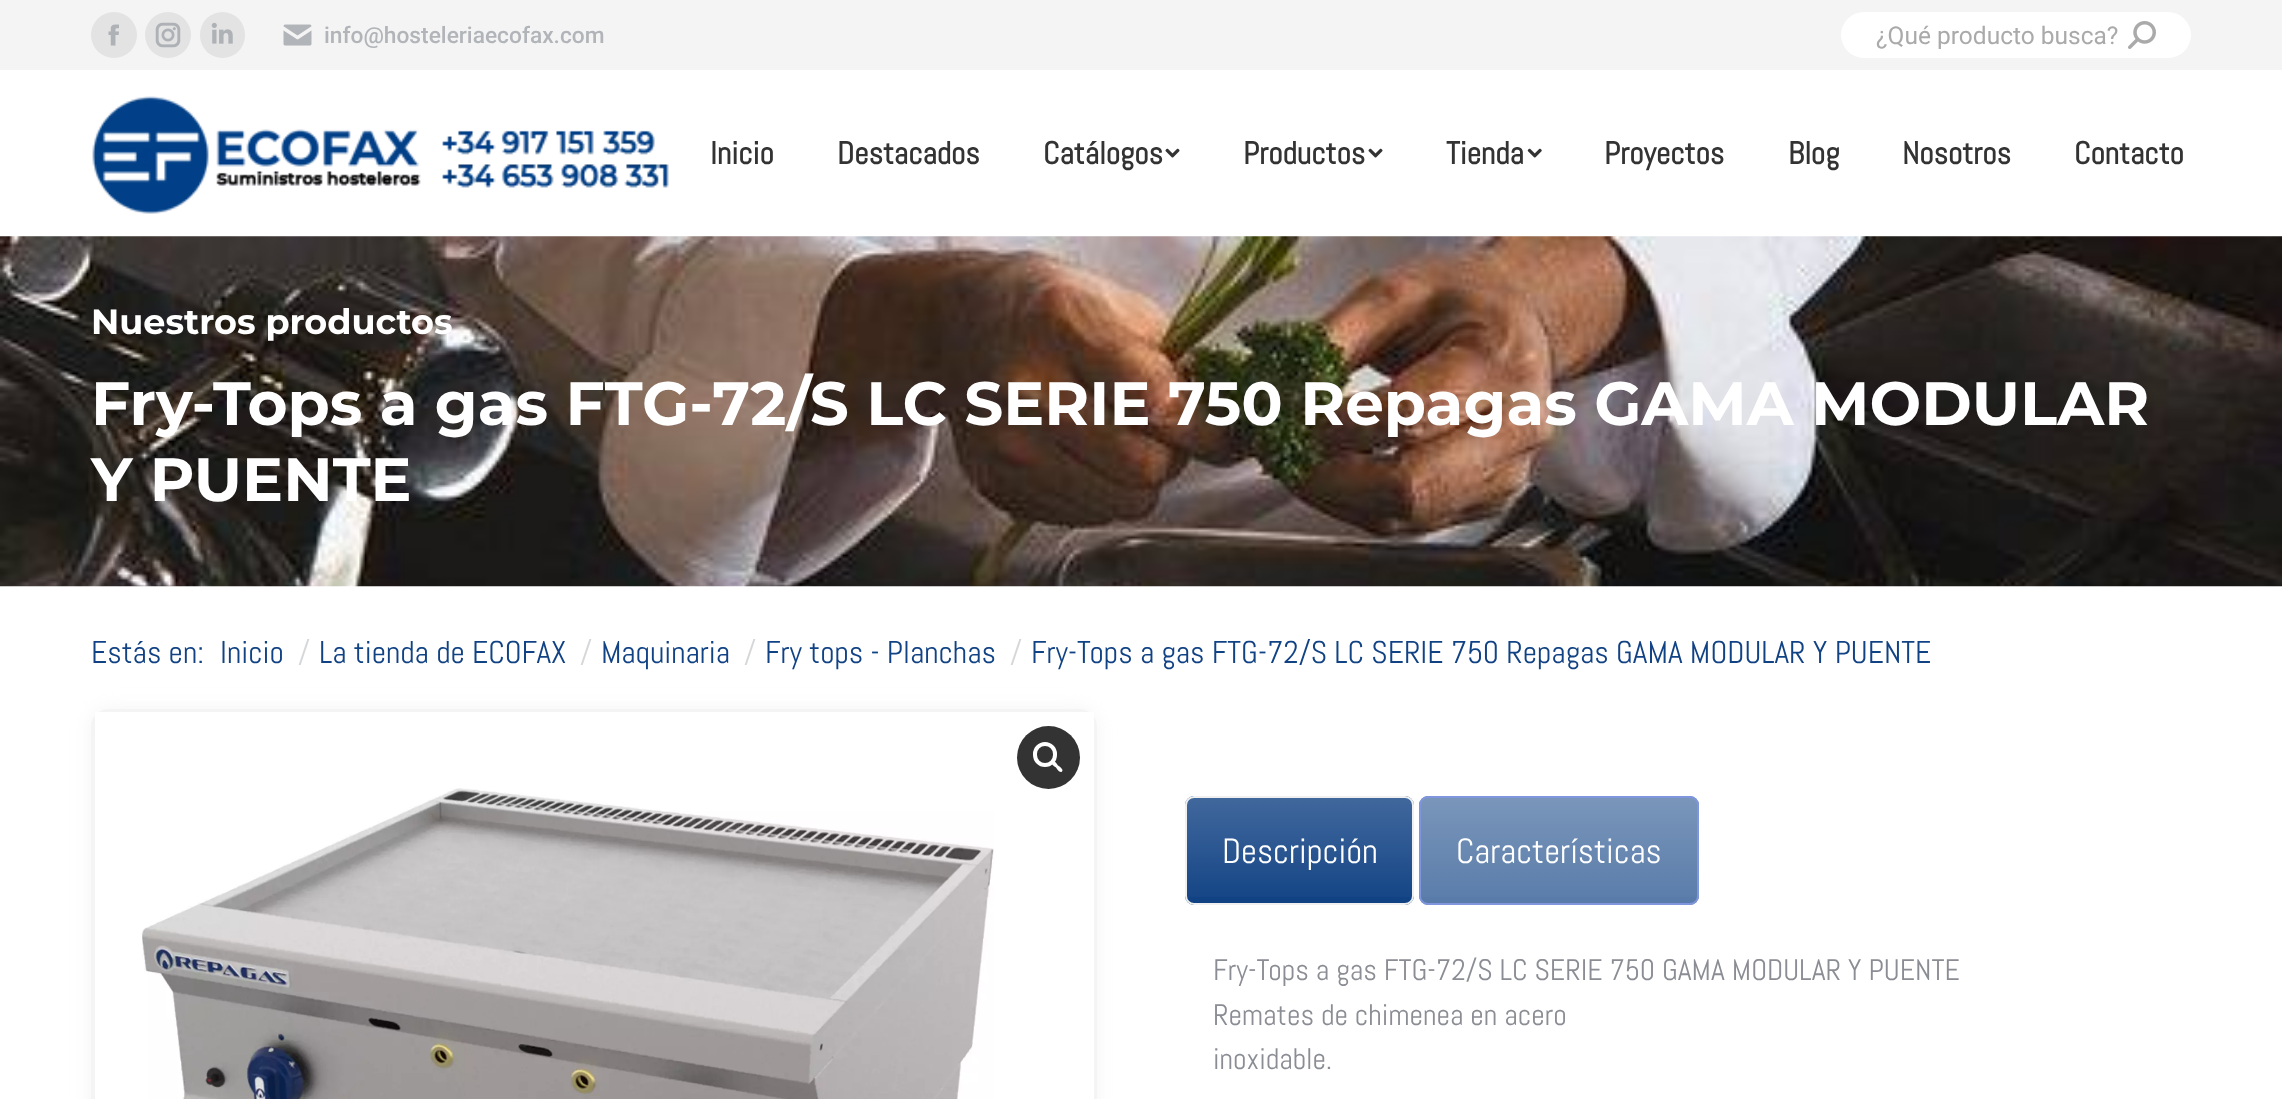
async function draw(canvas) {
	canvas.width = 2282;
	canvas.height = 1099;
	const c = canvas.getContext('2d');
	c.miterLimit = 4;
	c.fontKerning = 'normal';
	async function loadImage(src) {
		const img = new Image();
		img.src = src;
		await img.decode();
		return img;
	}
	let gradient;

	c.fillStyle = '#fff';
	c.fillRect(0, 0, 2282, 1099);
	c.fillStyle = '#f4f4f4';
	c.fillRect(0, 0, 2282, 70);
	c.fillStyle = '#e3e3e3';
	c.beginPath();
	c.arc(114, 35, 23, 0, 2 * Math.PI);
	c.fill();
	c.drawImage(await loadImage('img1.png'), 108, 24, 11, 22);
	c.beginPath();
	c.arc(168, 35, 23, 0, 2 * Math.PI);
	c.fill();
	c.drawImage(await loadImage('img2.png'), 155, 22, 26, 26);
	c.beginPath();
	c.roundRect(200, 12, 45, 46, 22.5);
	c.fill();
	c.drawImage(await loadImage('img3.png'), 211, 22, 22, 22);
	c.drawImage(await loadImage('img4.png'), 283, 24, 29, 22);
	c.font = '500 22.75px Roboto';
	c.fillStyle = '#b1b4b8';
	c.fillText('info@hosteleriaecofax.com', 324, 43);
	c.fillStyle = '#fff';
	c.beginPath();
	c.roundRect(1841, 12, 350, 46, 23);
	c.fill();
	c.font = '24.5px Roboto';
	c.fillStyle = '#aaa';
	c.fillText('¿Qué producto busca?', 1876, 44);
	c.drawImage(await loadImage('img5.png'), 2128, 21, 28, 28);
	c.drawImage(await loadImage('img6.png'), 92, 96, 577, 118);
	c.font = 'bold 31.5px Abel';
	c.fillStyle = '#333';
	for (const [text, x, y] of [
		['Inicio', 710, 164],
		['Destacados', 837, 164],
		['Catálogos', 1043, 164],
	]) {
		c.fillText(text, x, y);
	}
	c.drawImage(await loadImage('img7.png'), 1165, 148, 15, 10);
	c.fillText('Productos', 1243, 164);
	c.drawImage(await loadImage('img7.png'), 1368, 148, 15, 10);
	c.fillText('Tienda', 1446, 164);
	c.drawImage(await loadImage('img8.png'), 1527, 148, 15, 10);
	for (const [text, x, y] of [
		['Proyectos', 1604, 164],
		['Blog', 1788, 164],
		['Nosotros', 1902, 164],
		['Contacto', 2074, 164],
	]) {
		c.fillText(text, x, y);
	}
	c.drawImage(await loadImage('img9.png'), 0, 236, 2282, 351);
	c.font = 'bold 35px Montserrat';
	c.fillStyle = '#fff';
	c.fillText('Nuestros productos', 91, 334);
	c.font = 'bold 61.25px Montserrat';
	c.fillText('Fry-Tops a gas FTG-72/S LC SERIE 750 Repagas GAMA MODULAR', 91, 425);
	c.fillText('Y PUENTE', 91, 501);
	c.font = '31.5px Abel';
	c.fillStyle = '#114284';
	c.fillText('Estás en:', 91, 663);
	c.fillText('Inicio', 220, 663);
	c.fillStyle = '#d6d7d9';
	c.fillText('/', 298, 663);
	c.fillStyle = '#114284';
	c.fillText('La tienda de ECOFAX', 319, 663);
	c.fillStyle = '#d6d7d9';
	c.fillText('/', 580, 663);
	c.fillStyle = '#114284';
	c.fillText('Maquinaria', 601, 663);
	c.fillStyle = '#d6d7d9';
	c.fillText('/', 744, 663);
	c.fillStyle = '#114284';
	c.fillText('Fry tops - Planchas', 765, 663);
	c.fillStyle = '#d6d7d9';
	c.fillText('/', 1010, 663);
	c.fillStyle = '#114284';
	c.fillText('Fry-Tops a gas FTG-72/S LC SERIE 750 Repagas GAMA MODULAR Y PUENTE', 1031, 663);
	c.fillStyle = '#f4f4f4';
	c.filter = 'blur(9px)';
	c.beginPath();
	c.roundRect(91, 709, 1006, 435, 18);
	c.fill();
	c.filter = 'none';
	c.beginPath();
	c.roundRect(93, 711, 1002, 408, 16);
	c.strokeStyle = '#f4f4f4';
	c.lineWidth = 4;
	c.stroke();
	c.fillStyle = '#fff';
	c.fillRect(95, 712, 999, 387);
	c.drawImage(await loadImage('img10.png'), 141, 788, 853, 311);
	c.fillStyle = '#333';
	c.beginPath();
	c.arc(1048.5, 757.5, 31.5, 0, 2 * Math.PI);
	c.fill();
	c.beginPath();
	c.roundRect(1035, 744, 20, 21, 10);
	c.strokeStyle = '#fff';
	c.stroke();
	c.fillStyle = '#fff';
	c.beginPath();
	c.moveTo(1052, 761.5);
	c.bezierCurveTo(1054, 759.5, 1057, 764, 1058, 765.5);
	c.bezierCurveTo(1059.5, 766.5, 1064, 769.5, 1062, 771.5);
	c.bezierCurveTo(1060, 773.5, 1057, 769, 1056, 767.5);
	c.bezierCurveTo(1054.5, 766.5, 1050, 763.5, 1052, 761.5);
	c.closePath();
	c.fill();
	c.fillStyle = '#114284';
	c.beginPath();
	c.roundRect(1185, 796, 229, 109, 9);
	c.fill();
	c.save();
	c.beginPath();
	c.roundRect(1185, 796, 229, 109, 9);
	c.clip();
	gradient = c.createLinearGradient(1299, 798, 1299, 903);
	gradient.addColorStop(0, '#ffffff33');
	gradient.addColorStop(1, '#ffffff03');
	c.fillStyle = gradient;
	c.fillRect(1185, 798, 229, 99);
	c.restore();
	c.beginPath();
	c.roundRect(1186, 797, 227, 107, 8);
	c.strokeStyle = '#f0f0f0';
	c.lineWidth = 2;
	c.stroke();
	c.font = '35px Abel';
	c.fillStyle = '#fff';
	c.fillText('Descripción', 1222, 863);
	c.fillStyle = '#587ba9';
	c.beginPath();
	c.roundRect(1419, 796, 280, 109, 9);
	c.fill();
	c.save();
	c.beginPath();
	c.roundRect(1419, 796, 280, 109, 9);
	c.clip();
	gradient = c.createLinearGradient(1559, 798, 1559, 903);
	gradient.addColorStop(0, '#ffffff33');
	gradient.addColorStop(1, '#ffffff03');
	c.fillStyle = gradient;
	c.fillRect(1419, 798, 280, 99);
	c.restore();
	c.beginPath();
	c.roundRect(1420, 797, 278, 107, 8);
	c.strokeStyle = '#7f95dd';
	c.stroke();
	c.fillStyle = '#fff';
	c.fillText('Características', 1456, 863);
	c.font = '29.75px Abel';
	c.fillStyle = '#8b8d94';
	for (const [text, x, y] of [
		['Fry-Tops a gas FTG-72/S LC SERIE 750 GAMA MODULAR Y PUENTE', 1213, 980],
		['Remates de chimenea en acero', 1213, 1025],
		['inoxidable.', 1213, 1069],
	]) {
		c.fillText(text, x, y);
	}
}

draw(document.querySelector('canvas'));
